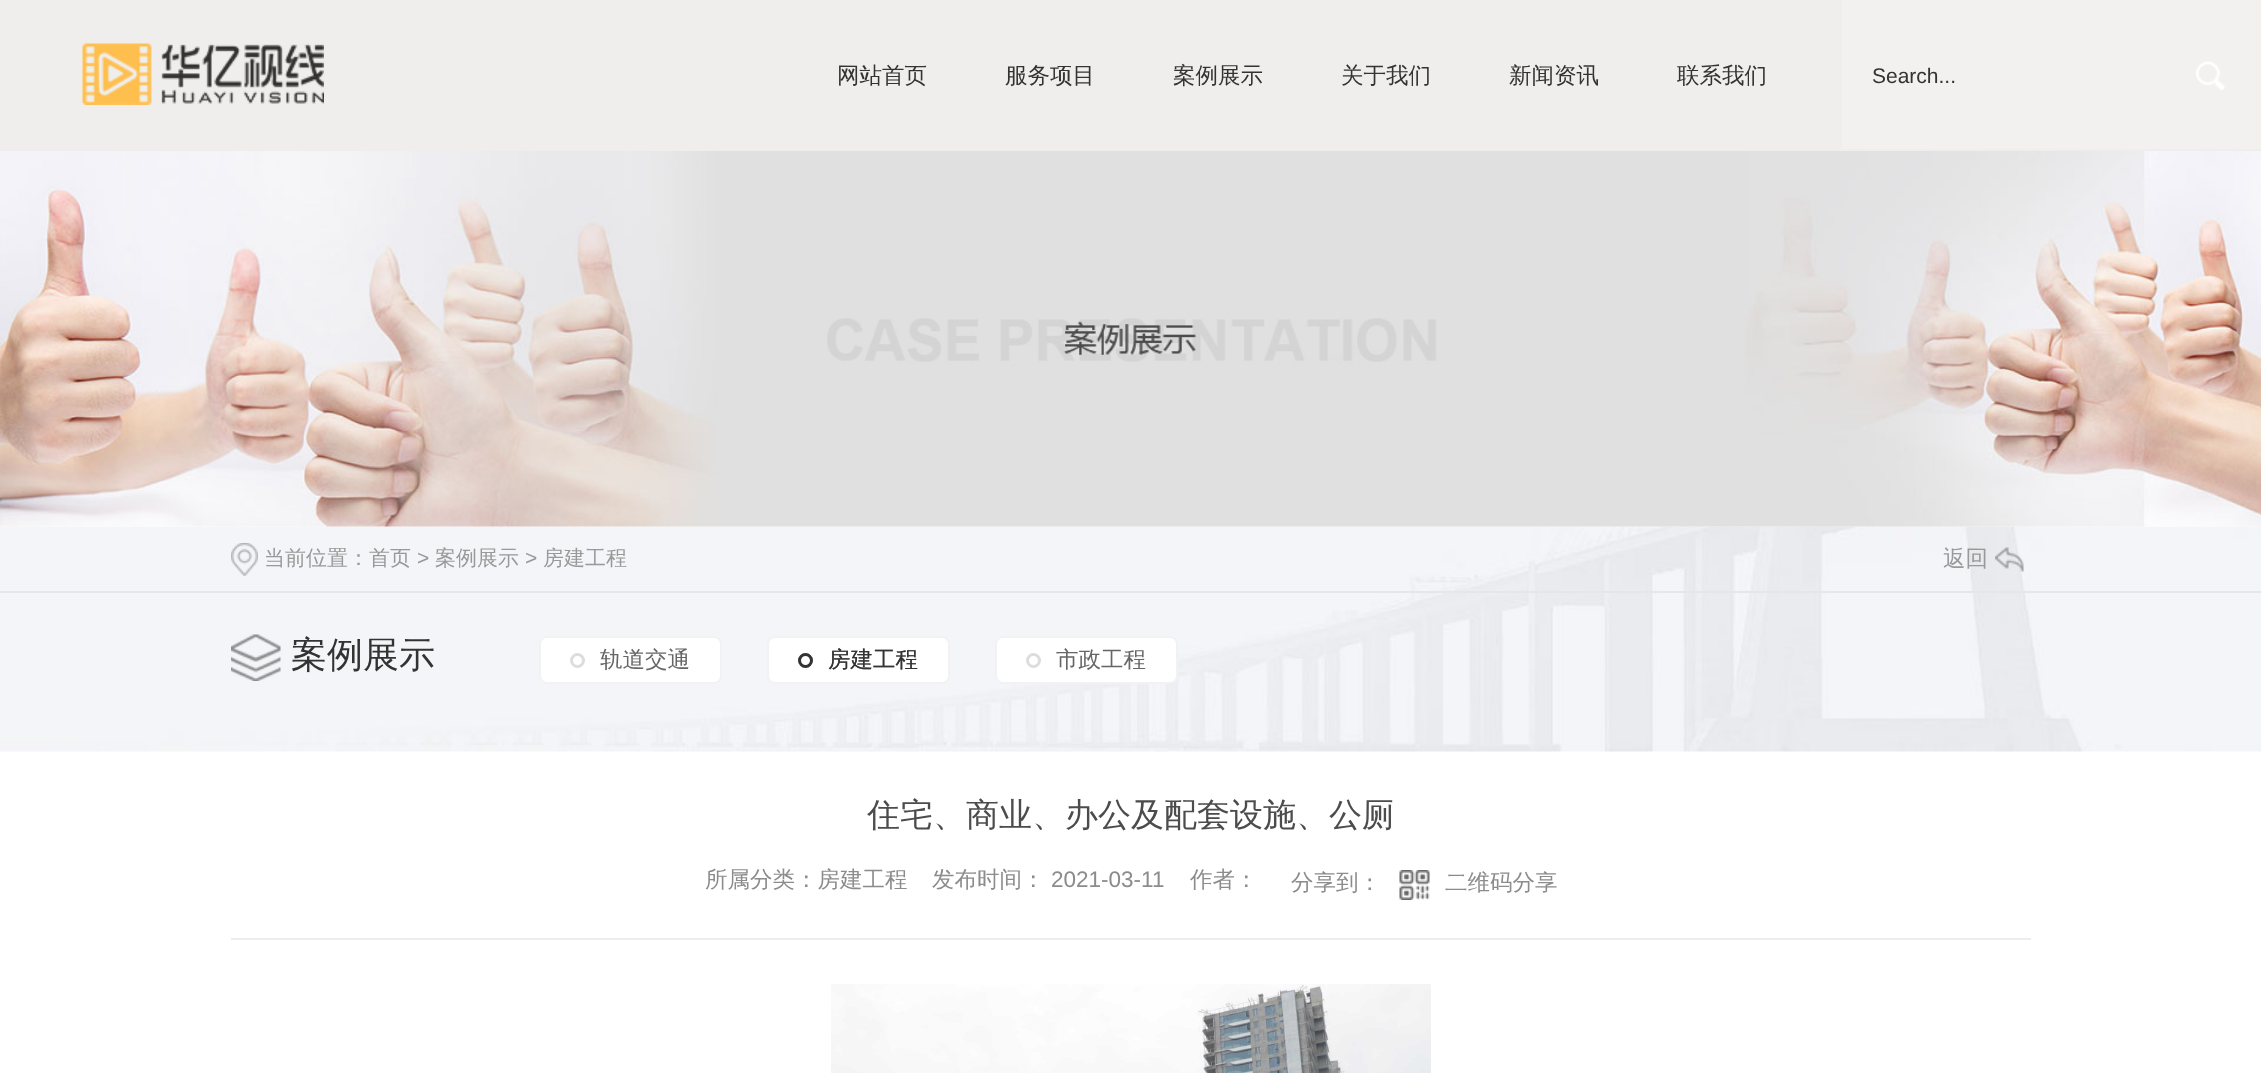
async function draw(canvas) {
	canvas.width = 2261;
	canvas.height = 1073;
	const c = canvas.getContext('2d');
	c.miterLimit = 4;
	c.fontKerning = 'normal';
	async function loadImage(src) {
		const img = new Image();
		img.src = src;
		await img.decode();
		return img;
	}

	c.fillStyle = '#fff';
	c.fillRect(0, 0, 2261, 1073);
	c.fillStyle = '#efeeec';
	c.fillRect(0, 0, 1842, 149);
	c.drawImage(await loadImage('img1.png'), 82, 43, 242, 62);
	c.font = '500 22.5px WenQuanYi Zen Hei';
	c.fillStyle = '#333';
	for (const [text, x, y] of [
		['网站首页', 837, 83],
		['服务项目', 1005, 83],
		['案例展示', 1173, 83],
		['关于我们', 1341, 83],
		['新闻资讯', 1509, 83],
		['联系我们', 1677, 83],
	]) {
		c.fillText(text, x, y);
	}
	c.fillStyle = '#f2f1f0';
	c.fillRect(1842, 0, 419, 149);
	c.font = '21px Liberation Sans';
	c.fillStyle = '#333';
	c.fillText('Search...', 1872, 83);
	c.drawImage(await loadImage('img2.png'), 2196, 61, 29, 29);
	c.fillStyle = '#efeeec';
	c.fillRect(0, 149, 2261, 2);
	c.drawImage(await loadImage('img4.png'), 0, 526, 2261, 226);
	c.drawImage(await loadImage('img3.png'), 0, 151, 2261, 376);
	c.fillStyle = '#e6e6e6';
	c.fillRect(0, 591, 2261, 2);
	c.drawImage(await loadImage('img5.png'), 231, 543, 27, 33);
	c.font = '500 21px WenQuanYi Zen Hei';
	c.fillStyle = '#999';
	c.fillText('当前位置：首页', 264, 565);
	c.font = '21px Liberation Sans';
	c.fillText('>', 417, 565);
	c.font = '500 21px WenQuanYi Zen Hei';
	c.fillText('案例展示', 435, 565);
	c.font = '21px Liberation Sans';
	c.fillText('>', 525, 565);
	c.font = '500 21px WenQuanYi Zen Hei';
	c.fillText('房建工程', 543, 565);
	c.font = '500 22.5px WenQuanYi Zen Hei';
	c.fillText('返回', 1943, 566);
	c.drawImage(await loadImage('img6.png'), 1995, 547, 29, 25);
	c.drawImage(await loadImage('img7.png'), 231, 634, 50, 47);
	c.font = '500 36px WenQuanYi Zen Hei';
	c.fillStyle = '#333';
	c.fillText('案例展示', 291, 667);
	c.fillStyle = '#fff';
	c.beginPath();
	c.roundRect(540, 637, 181, 46, 7);
	c.fill();
	c.strokeStyle = '#f2f2f2';
	c.lineWidth = 2;
	c.stroke();
	c.beginPath();
	c.arc(577.5, 660.5, 6, 0, 2 * Math.PI);
	c.strokeStyle = '#ddd';
	c.lineWidth = 3;
	c.stroke();
	c.font = '500 22.5px WenQuanYi Zen Hei';
	c.fillStyle = '#666';
	c.fillText('轨道交通', 600, 667);
	c.fillStyle = '#fff';
	c.beginPath();
	c.roundRect(768, 637, 181, 46, 7);
	c.fill();
	c.strokeStyle = '#f2f2f2';
	c.lineWidth = 2;
	c.stroke();
	c.fillStyle = '#666';
	c.fillText('房建工程', 828, 667);
	c.beginPath();
	c.arc(805.5, 660.5, 6, 0, 2 * Math.PI);
	c.strokeStyle = '#ddd';
	c.lineWidth = 3;
	c.stroke();
	c.beginPath();
	c.arc(805.5, 660.5, 6, 0, 2 * Math.PI);
	c.strokeStyle = '#333';
	c.stroke();
	c.fillStyle = '#333';
	c.fillText('房建工程', 828, 667);
	c.fillStyle = '#fff';
	c.beginPath();
	c.roundRect(996, 637, 181, 46, 7);
	c.fill();
	c.strokeStyle = '#f2f2f2';
	c.lineWidth = 2;
	c.stroke();
	c.beginPath();
	c.arc(1033.5, 660.5, 6, 0, 2 * Math.PI);
	c.strokeStyle = '#ddd';
	c.lineWidth = 3;
	c.stroke();
	c.fillStyle = '#666';
	c.fillText('市政工程', 1056, 667);
	c.font = '500 33px WenQuanYi Zen Hei';
	c.fillStyle = '#4c4c4c';
	c.fillText('住宅、商业、办公及配套设施、公厕', 867, 826);
	c.font = '500 22.5px WenQuanYi Zen Hei';
	c.fillStyle = '#8c8c8c';
	c.fillText('所属分类：房建工程', 705, 887);
	c.fillText('发布时间：', 932, 887);
	c.font = '22.5px Liberation Sans';
	c.fillText('2021-03-11', 1051, 887);
	c.font = '500 22.5px WenQuanYi Zen Hei';
	c.fillText('作者：', 1190, 887);
	c.fillText('分享到：', 1291, 890);
	c.drawImage(await loadImage('img8.png'), 1399, 870, 31, 30);
	c.fillText('二维码分享', 1445, 890);
	c.fillStyle = '#ededed';
	c.fillRect(231, 938, 1800, 2);
	c.drawImage(await loadImage('img9.png'), 831, 984, 600, 89);
}

draw(document.querySelector('canvas'));
